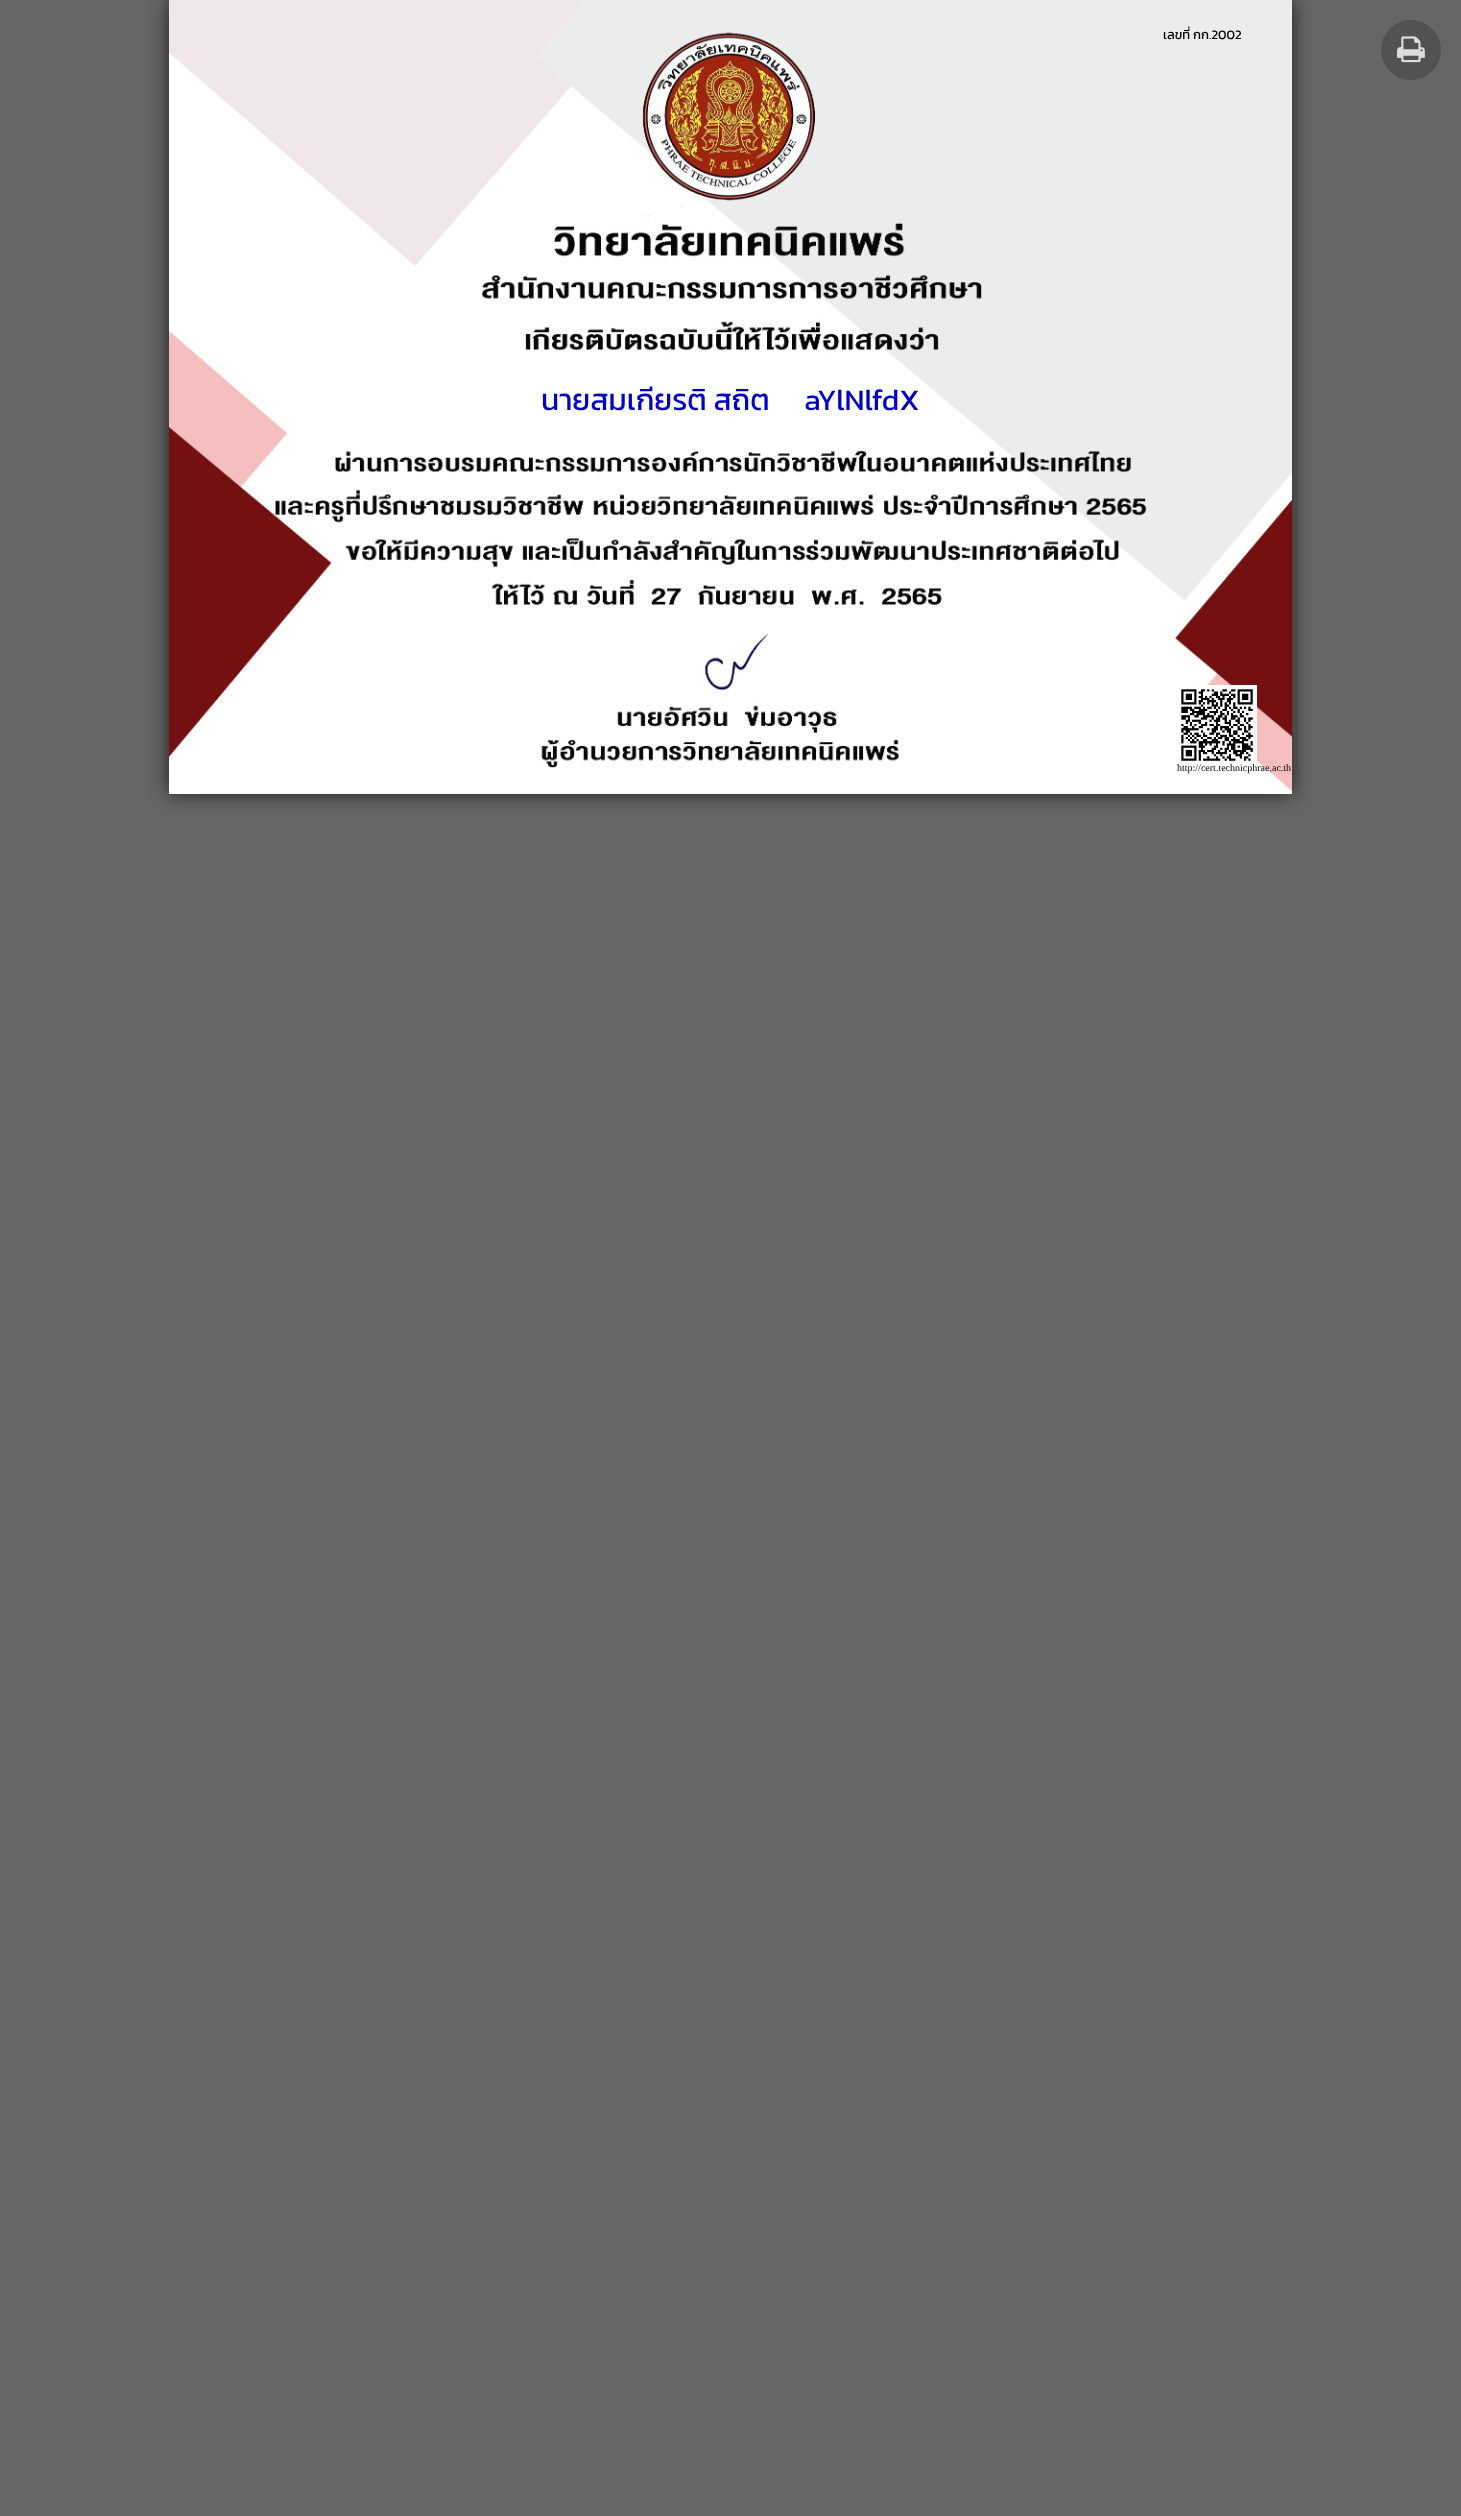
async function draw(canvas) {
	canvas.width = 1461;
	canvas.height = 2516;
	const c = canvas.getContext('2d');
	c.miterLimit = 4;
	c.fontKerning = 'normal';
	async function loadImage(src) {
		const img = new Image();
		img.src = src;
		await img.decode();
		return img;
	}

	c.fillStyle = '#666';
	c.fillRect(0, 0, 1461, 2516);
	c.fillStyle = '#000000b3';
	c.filter = 'blur(10px)';
	c.beginPath();
	c.rect(169, 0, 1123, 794);
	c.fill();
	c.filter = 'none';
	c.fillStyle = '#fff';
	c.fillRect(169, 791, 1123, 3);
	c.drawImage(await loadImage('img1.png'), 169, 0, 1123, 791);
	c.font = '13px Kanit';
	c.fillStyle = '#000';
	c.fillText('เลขที่ กก.2002', 1163, 39);
	c.font = '30px Kanit';
	c.fillStyle = '#0300c5';
	c.fillText('นายสมเกียรติ สถิต     aYlNlfdX', 541, 410);
	c.drawImage(await loadImage('img2.png'), 1181, 685, 76, 77);
	c.font = '10px Liberation Serif';
	c.fillStyle = '#000';
	c.fillText('http://cert.technicphrae.ac.th', 1177, 771);
	c.fillStyle = '#525252';
	c.beginPath();
	c.arc(1411, 50, 30, 0, 2 * Math.PI);
	c.fill();
	c.drawImage(await loadImage('img3.png'), 1397, 36, 28, 27);
}

draw(document.querySelector('canvas'));
